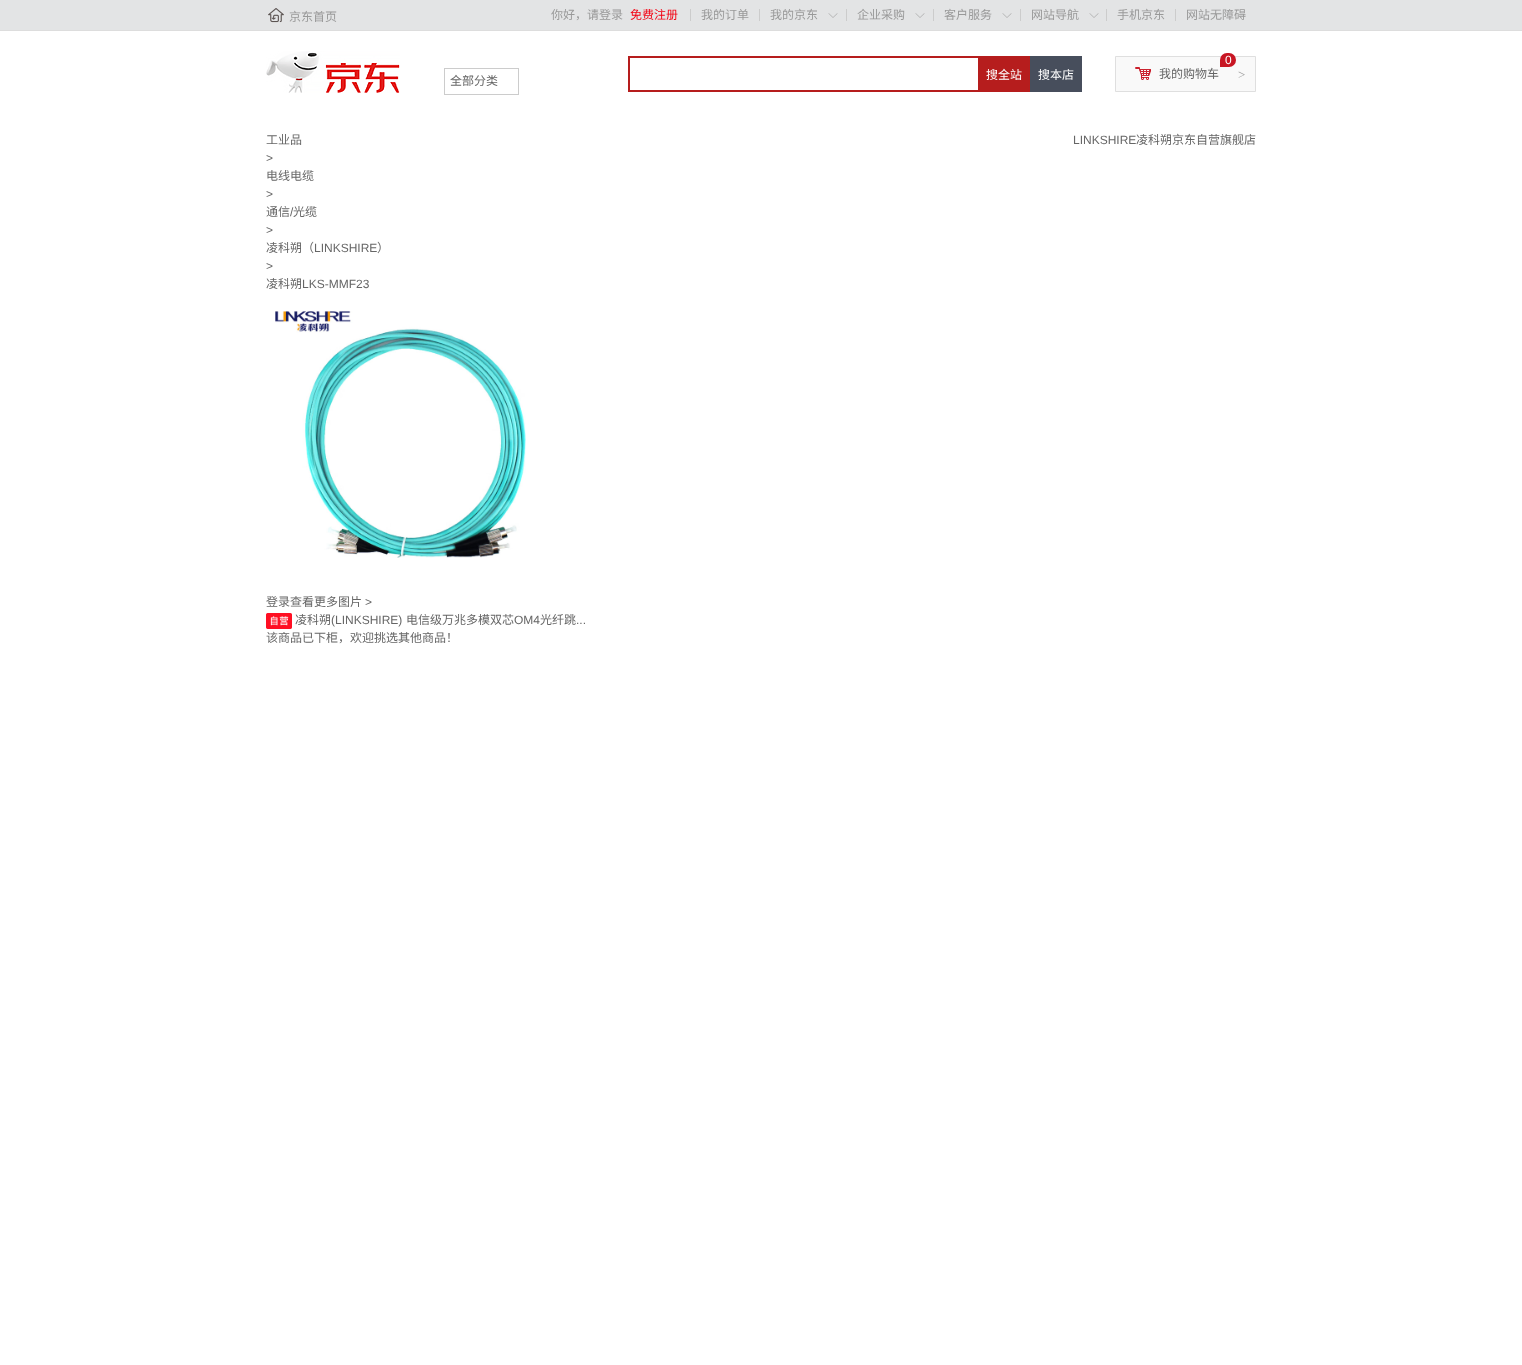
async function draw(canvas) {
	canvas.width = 1522;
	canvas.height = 1365;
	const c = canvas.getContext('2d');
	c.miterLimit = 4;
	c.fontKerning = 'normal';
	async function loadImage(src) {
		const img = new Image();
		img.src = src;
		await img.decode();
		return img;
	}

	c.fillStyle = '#fff';
	c.fillRect(0, 0, 1522, 1365);
	c.fillStyle = '#e3e4e5';
	c.fillRect(0, 0, 1522, 30);
	c.fillStyle = '#ddd';
	c.fillRect(0, 30, 1522, 1);
	c.drawImage(await loadImage('img1.png'), 268, 8, 16, 15);
	c.font = '12px Noto Sans CJK SC';
	c.fillStyle = '#999';
	c.fillText('京东首页', 289, 21);
	c.fillText('你好，请登录', 551, 19);
	c.fillStyle = '#f30213';
	c.fillText('免费注册', 630, 19);
	c.fillStyle = '#ccc';
	c.fillRect(690, 9, 1, 12);
	c.fillStyle = '#999';
	c.fillText('我的订单', 701, 19);
	c.fillStyle = '#ccc';
	c.fillRect(759, 9, 1, 12);
	c.fillStyle = '#999';
	c.fillText('我的京东', 770, 19);
	c.drawImage(await loadImage('img2.png'), 828, 13, 10, 5);
	c.fillStyle = '#ccc';
	c.fillRect(846, 9, 1, 12);
	c.fillStyle = '#999';
	c.fillText('企业采购', 857, 19);
	c.drawImage(await loadImage('img2.png'), 915, 13, 10, 5);
	c.fillStyle = '#ccc';
	c.fillRect(933, 9, 1, 12);
	c.fillStyle = '#999';
	c.fillText('客户服务', 944, 19);
	c.drawImage(await loadImage('img2.png'), 1002, 13, 10, 5);
	c.fillStyle = '#ccc';
	c.fillRect(1020, 9, 1, 12);
	c.fillStyle = '#999';
	c.fillText('网站导航', 1031, 19);
	c.drawImage(await loadImage('img2.png'), 1089, 13, 10, 5);
	c.fillStyle = '#ccc';
	c.fillRect(1106, 9, 1, 12);
	c.fillStyle = '#999';
	c.fillText('手机京东', 1117, 19);
	c.fillStyle = '#ccc';
	c.fillRect(1175, 9, 1, 12);
	c.fillStyle = '#999';
	c.fillText('网站无障碍', 1186, 19);
	c.drawImage(await loadImage('img3.png'), 266, 51, 134, 42);
	c.strokeStyle = '#ccc';
	c.strokeRect(444.5, 68.5, 74, 26);
	c.fillStyle = '#666';
	c.fillText('全部分类', 450, 85);
	for (const [x, y, w, h, color] of [
		[628, 56, 350, 2, '#b61d1d'],
		[628, 90, 350, 2, '#b61d1d'],
		[628, 56, 2, 36, '#b61d1d'],
		[978, 56, 52, 36, '#b61d1d'],
	]) {
		c.fillStyle = color;
		c.fillRect(x, y, w, h);
	}
	c.fillStyle = '#fff';
	c.fillText('搜全站', 986, 79);
	c.fillStyle = '#474e5c';
	c.fillRect(1030, 56, 52, 36);
	c.fillStyle = '#fff';
	c.fillText('搜本店', 1038, 79);
	c.fillStyle = '#f9f9f9';
	c.beginPath();
	c.rect(1115.5, 56.5, 140, 35);
	c.fill();
	c.strokeStyle = '#dfdfdf';
	c.stroke();
	c.fillStyle = '#c81623';
	c.beginPath();
	c.roundRect(1220, 53, 16, 14, [7, 7, 7, 0]);
	c.fill();
	c.font = '12px Liberation Sans';
	c.fillStyle = '#fff';
	c.fillText('0', 1225, 64);
	c.drawImage(await loadImage('img4.png'), 1135, 67, 16, 13);
	c.font = '12px Noto Sans CJK SC';
	c.fillStyle = '#666';
	c.fillText('我的购物车', 1159, 78);
	c.font = '13px Liberation Serif';
	c.fillStyle = '#999';
	c.fillText('>', 1238, 79);
	c.font = '12px Noto Sans CJK SC';
	c.fillStyle = '#666';
	c.fillText('工业品', 266, 144);
	c.font = '12px Liberation Sans';
	c.fillText('>', 266, 162);
	c.font = '12px Noto Sans CJK SC';
	c.fillText('电线电缆', 266, 180);
	c.font = '12px Liberation Sans';
	c.fillText('>', 266, 198);
	c.font = '12px Noto Sans CJK SC';
	c.fillText('通信', 266, 216);
	c.font = '12px Liberation Sans';
	c.fillText('/', 290, 216);
	c.font = '12px Noto Sans CJK SC';
	c.fillText('光缆', 293, 216);
	c.font = '12px Liberation Sans';
	c.fillText('>', 266, 234);
	c.font = '12px Noto Sans CJK SC';
	c.fillText('凌科朔（', 266, 252);
	c.font = '12px Liberation Sans';
	c.fillText('LINKSHIRE', 314, 252);
	c.font = '12px Noto Sans CJK SC';
	c.fillText('）', 377, 252);
	c.font = '12px Liberation Sans';
	c.fillText('>', 266, 270);
	c.font = '12px Noto Sans CJK SC';
	c.fillText('凌科朔', 266, 288);
	c.font = '12px Liberation Sans';
	c.fillText('LKS-MMF23', 302, 288);
	c.fillText('LINKSHIRE', 1073, 144);
	c.font = '12px Noto Sans CJK SC';
	c.fillText('凌科朔京东自营旗舰店', 1136, 144);
	c.drawImage(await loadImage('img5.png'), 275, 311, 251, 247);
	c.fillText('登录查看更多图片', 266, 606);
	c.font = '12px Liberation Sans';
	c.fillText('>', 365, 606);
	c.drawImage(await loadImage('img6.png'), 266, 613, 26, 16);
	c.font = '12px Noto Sans CJK SC';
	c.fillText('凌科朔', 295, 624);
	c.font = '12px Liberation Sans';
	c.fillText('(LINKSHIRE)', 331, 624);
	c.font = '12px Noto Sans CJK SC';
	c.fillText('电信级万兆多模双芯', 406, 624);
	c.font = '12px Liberation Sans';
	c.fillText('OM4', 514, 624);
	c.font = '12px Noto Sans CJK SC';
	c.fillText('光纤跳', 540, 624);
	c.font = '12px Liberation Sans';
	c.fillText('...', 576, 624);
	c.font = '12px Noto Sans CJK SC';
	c.fillText('该商品已下柜，欢迎挑选其他商品！', 266, 642);
}

draw(document.querySelector('canvas'));
